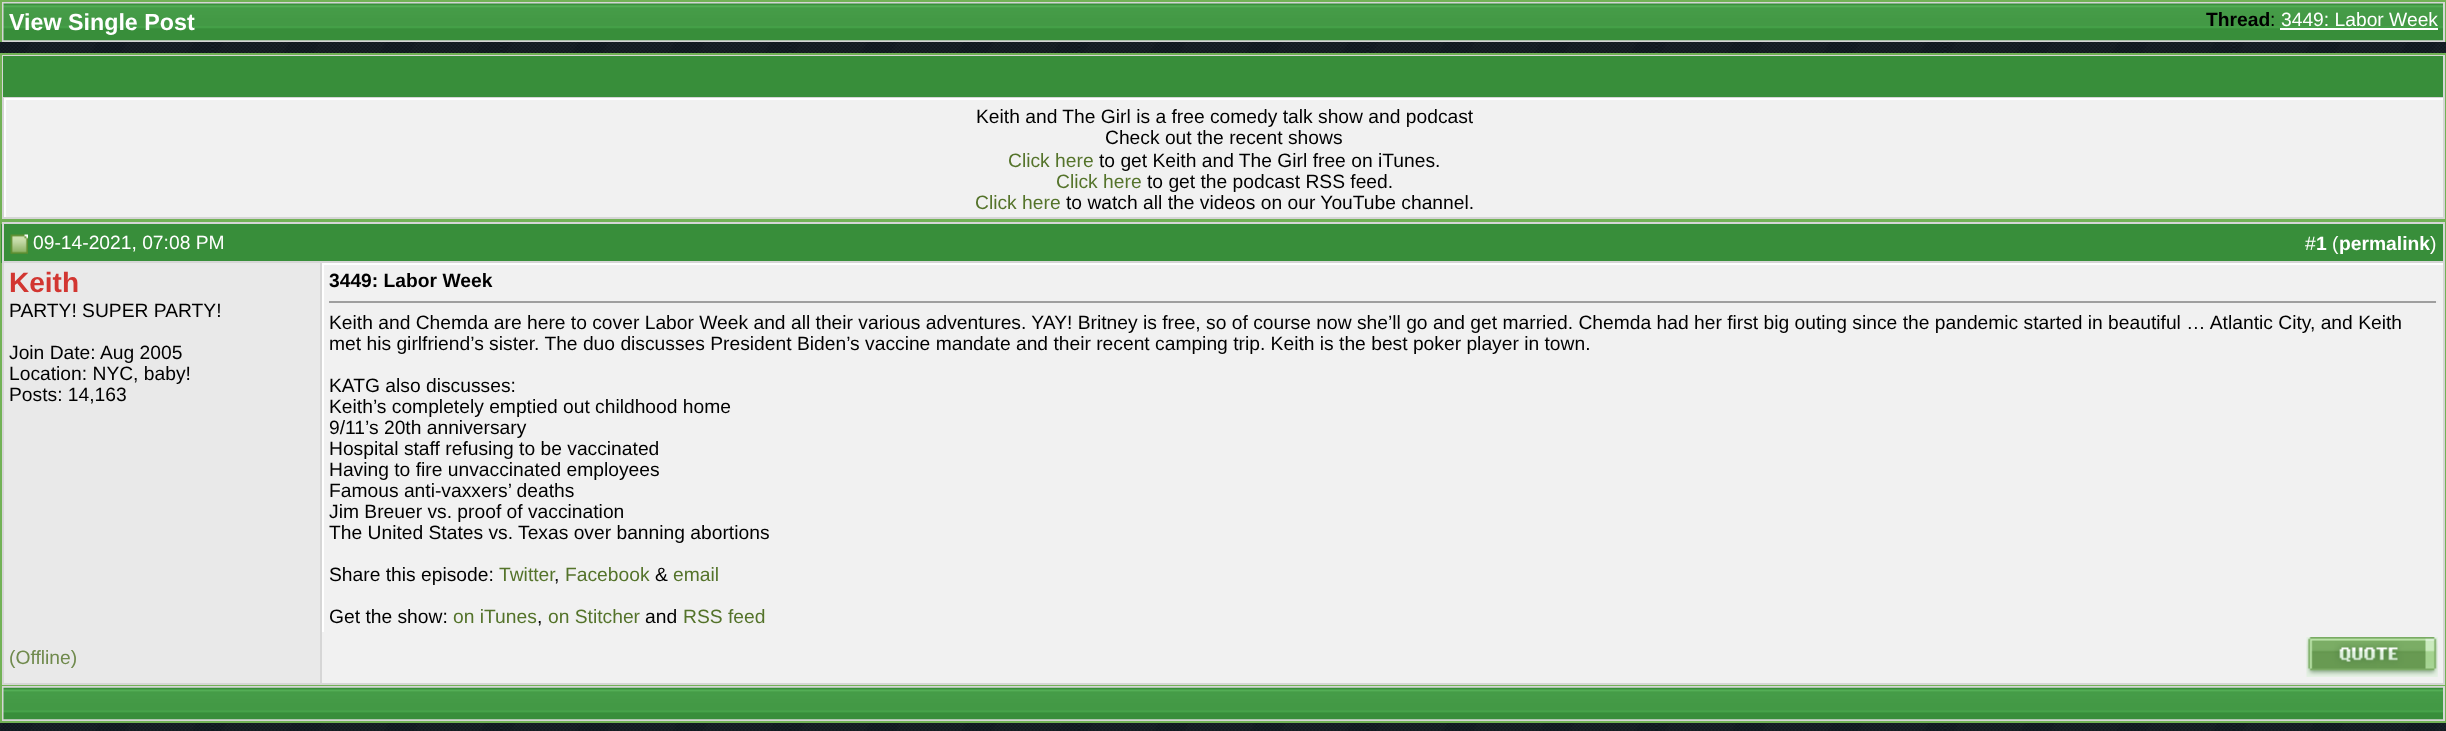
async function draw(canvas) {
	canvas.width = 2446;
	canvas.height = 731;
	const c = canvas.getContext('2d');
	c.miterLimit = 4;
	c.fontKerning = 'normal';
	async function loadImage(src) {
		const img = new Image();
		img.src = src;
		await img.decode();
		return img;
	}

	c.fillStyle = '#fff';
	c.fillRect(0, 0, 2446, 731);
	c.drawImage(await loadImage('img1.png'), 0, 42, 2446, 689);
	for (const [x, y, w, h, color] of [
		[2, 2, 2443, 40, '#d6d6d6'],
		[0, 0, 2446, 2, '#72b256'],
		[2445, 0, 1, 42, '#72b256'],
		[0, 0, 2, 42, '#72b256'],
	]) {
		c.fillStyle = color;
		c.fillRect(x, y, w, h);
	}
	c.drawImage(await loadImage('img2.png'), 3, 3, 2440, 38);
	c.font = 'bold 23.25px Liberation Sans';
	c.fillStyle = '#fff';
	c.fillText('View Single Post', 9, 30);
	c.font = 'bold 19.25px Liberation Sans';
	c.fillStyle = '#000';
	c.fillText('Thread', 2206, 26);
	c.font = '19.25px Liberation Sans';
	c.fillText(':', 2270, 26);
	c.fillStyle = '#fff';
	c.fillText('3449: Labor Week', 2281, 26);
	c.fillRect(2280, 28, 158, 2);
	c.fillStyle = '#d6d6d6';
	c.beginPath();
	c.rect(1, 54, 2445, 166);
	c.fill();
	c.strokeStyle = '#72b256';
	c.lineWidth = 2;
	c.stroke();
	for (const [x, y, w, h, color] of [
		[3, 56, 2440, 41, '#388e3a'],
		[6, 100, 2437, 117, '#f1f1f1'],
		[4, 98, 2439, 2, '#fff'],
		[4, 98, 2, 119, '#fff'],
	]) {
		c.fillStyle = color;
		c.fillRect(x, y, w, h);
	}
	c.fillStyle = '#000';
	c.fillText('Keith and The Girl is a free comedy talk show and podcast', 976, 123);
	c.fillText('Check out the recent shows', 1105, 144);
	c.fillStyle = '#54732a';
	c.fillText('Click here', 1008, 167);
	c.fillStyle = '#000';
	c.fillText('to get Keith and The Girl free on iTunes.', 1099, 167);
	c.fillStyle = '#54732a';
	c.fillText('Click here', 1056, 188);
	c.fillStyle = '#000';
	c.fillText('to get the podcast RSS feed.', 1147, 188);
	c.fillStyle = '#54732a';
	c.fillText('Click here', 975, 209);
	c.fillStyle = '#000';
	c.fillText('to watch all the videos on our YouTube channel.', 1066, 209);
	c.strokeRect(1, 222, 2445, 463);
	for (const [x, y, w, h, color] of [
		[1, 224, 321, 39, '#388e3a'],
		[2, 222, 2443, 2, '#d6d6d6'],
		[2, 261, 320, 2, '#d6d6d6'],
		[2, 222, 2, 410, '#d6d6d6'],
	]) {
		c.fillStyle = color;
		c.fillRect(x, y, w, h);
	}
	c.drawImage(await loadImage('img3.png'), 10, 234, 18, 20);
	c.fillStyle = '#fff';
	c.fillText('09-14-2021, 07:08 PM', 33, 249);
	for (const [x, y, w, h, color] of [
		[322, 224, 2121, 37, '#388e3a'],
		[2443, 222, 2, 41, '#d6d6d6'],
		[322, 261, 2123, 2, '#d6d6d6'],
	]) {
		c.fillStyle = color;
		c.fillRect(x, y, w, h);
	}
	c.fillStyle = '#fff';
	c.fillText('#', 2305, 250);
	c.font = 'bold 19.25px Liberation Sans';
	c.fillText('1', 2316, 250);
	c.font = '19.25px Liberation Sans';
	c.fillText('(', 2332, 250);
	c.font = 'bold 19.25px Liberation Sans';
	c.fillText('permalink', 2339, 250);
	c.font = '19.25px Liberation Sans';
	c.fillText(')', 2430, 250);
	c.fillStyle = '#e9e9e9';
	c.fillRect(4, 263, 316, 420);
	c.fillStyle = '#d6d6d6';
	c.fillRect(320, 263, 2, 421);
	c.font = 'bold 28px Liberation Sans';
	c.fillStyle = '#d23631';
	c.fillText('Keith', 9, 292);
	c.font = '19.25px Liberation Sans';
	c.fillStyle = '#000';
	for (const [text, x, y] of [
		['PARTY! SUPER PARTY!', 9, 317],
		['Join Date: Aug 2005', 9, 359],
		['Location: NYC, baby!', 9, 380],
		['Posts: 14,163', 9, 401],
	]) {
		c.fillText(text, x, y);
	}
	for (const [x, y, w, h, color] of [
		[324, 265, 2119, 367, '#f1f1f1'],
		[322, 263, 2123, 2, '#fff'],
		[2443, 263, 2, 421, '#d6d6d6'],
		[322, 263, 2, 369, '#fff'],
	]) {
		c.fillStyle = color;
		c.fillRect(x, y, w, h);
	}
	c.font = 'bold 19.25px Liberation Sans';
	c.fillStyle = '#000';
	c.fillText('3449: Labor Week', 329, 287);
	c.fillStyle = '#9f9f9f';
	c.fillRect(329, 301, 2109, 2);
	c.fillStyle = '#eee';
	c.fillRect(2436, 301, 2, 2);
	c.font = '19.25px Liberation Sans';
	c.fillStyle = '#000';
	for (const [text, x, y] of [
		['Keith and Chemda are here to cover Labor Week and all their various adventures. YAY! Britney is free, so of course now she’ll go and get married. Chemda had her first big outing since the pandemic started in beautiful … Atlantic City, and Keith', 329, 329],
		['met his girlfriend’s sister. The duo discusses President Biden’s vaccine mandate and their recent camping trip. Keith is the best poker player in town.', 329, 350],
		['KATG also discusses:', 329, 392],
		['Keith’s completely emptied out childhood home', 329, 413],
		['9/11’s 20th anniversary', 329, 434],
		['Hospital staff refusing to be vaccinated', 329, 455],
		['Having to fire unvaccinated employees', 329, 476],
		['Famous anti-vaxxers’ deaths', 329, 497],
		['Jim Breuer vs. proof of vaccination', 329, 518],
		['The United States vs. Texas over banning abortions', 329, 539],
		['Share this episode:', 329, 581],
	]) {
		c.fillText(text, x, y);
	}
	c.fillStyle = '#54732a';
	c.fillText('Twitter', 499, 581);
	c.fillStyle = '#000';
	c.fillText(',', 554, 581);
	c.fillStyle = '#54732a';
	c.fillText('Facebook', 565, 581);
	c.fillStyle = '#000';
	c.fillText('&', 655, 581);
	c.fillStyle = '#54732a';
	c.fillText('email', 673, 581);
	c.fillStyle = '#000';
	c.fillText('Get the show:', 329, 623);
	c.fillStyle = '#54732a';
	c.fillText('on iTunes', 453, 623);
	c.fillStyle = '#000';
	c.fillText(',', 537, 623);
	c.fillStyle = '#54732a';
	c.fillText('on Stitcher', 548, 623);
	c.fillStyle = '#000';
	c.fillText('and', 645, 623);
	c.fillStyle = '#54732a';
	c.fillText('RSS feed', 683, 623);
	c.fillStyle = '#d6d6d6';
	c.fillRect(2, 683, 2443, 2);
	c.fillRect(2, 632, 2, 52);
	c.fillStyle = '#708a4d';
	c.fillText('(Offline)', 9, 664);
	c.fillStyle = '#f1f1f1';
	c.fillRect(322, 632, 2121, 51);
	c.drawImage(await loadImage('img4.png'), 2306, 637, 132, 40);
	for (const [x, y, w, h, color] of [
		[2, 686, 2443, 35, '#d6d6d6'],
		[2445, 686, 1, 37, '#72b256'],
		[0, 721, 2446, 2, '#72b256'],
		[0, 686, 2, 37, '#72b256'],
	]) {
		c.fillStyle = color;
		c.fillRect(x, y, w, h);
	}
	c.drawImage(await loadImage('img5.png'), 3, 687, 2440, 33);
}

draw(document.querySelector('canvas'));
